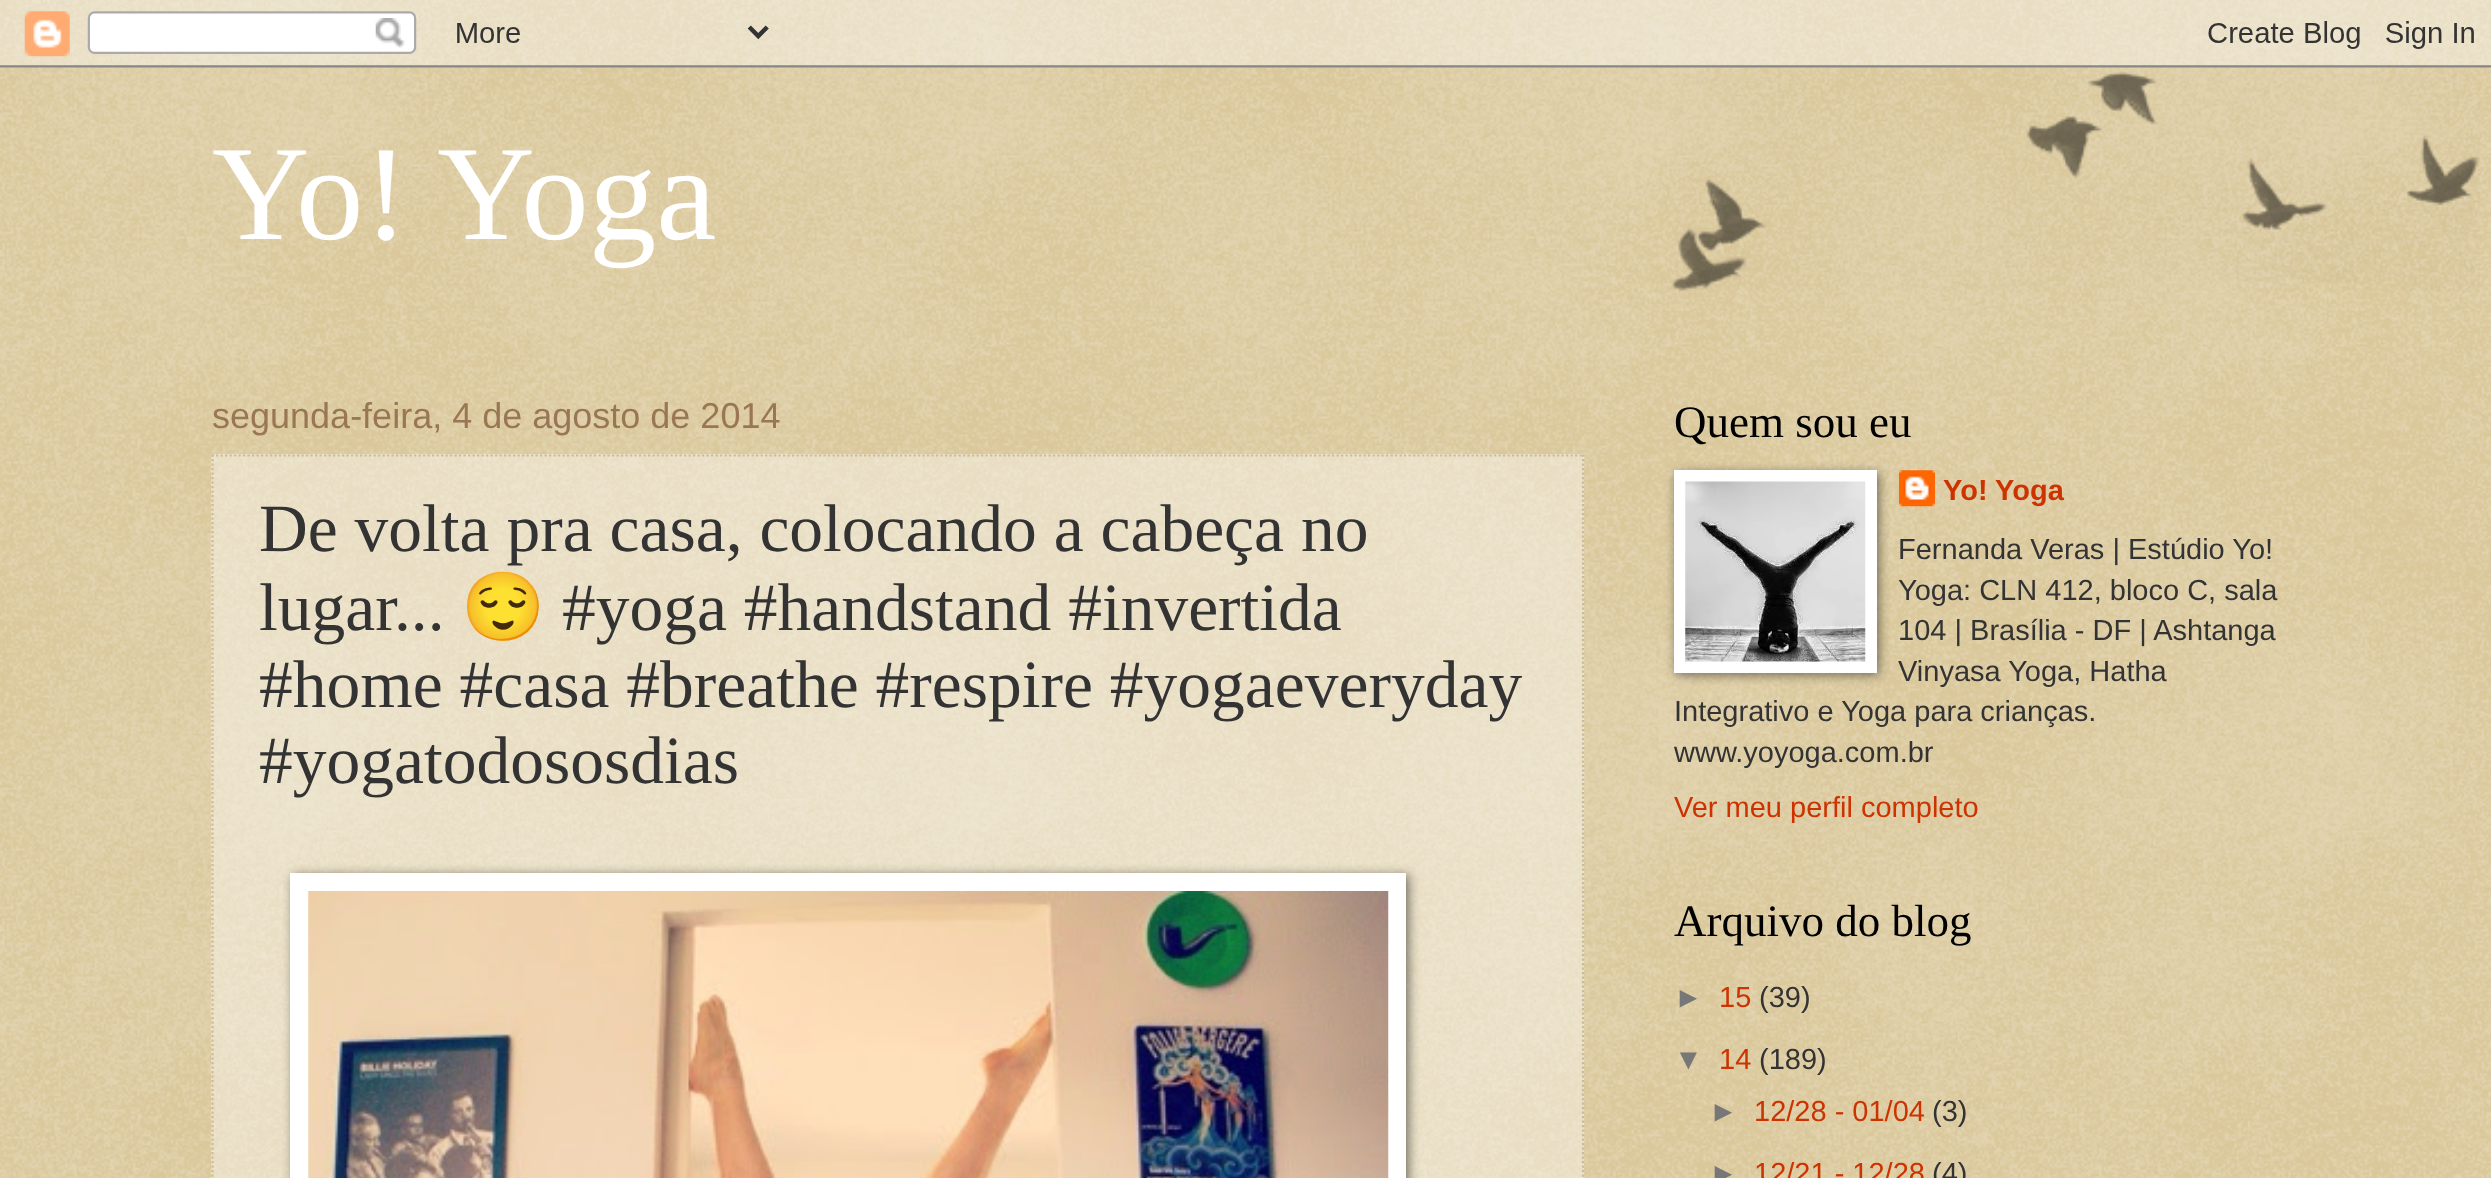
async function draw(canvas) {
	canvas.width = 2491;
	canvas.height = 1178;
	const c = canvas.getContext('2d');
	c.miterLimit = 4;
	c.fontKerning = 'normal';
	async function loadImage(src) {
		const img = new Image();
		img.src = src;
		await img.decode();
		return img;
	}

	c.fillStyle = '#c0a154';
	c.fillRect(0, 0, 2491, 1178);
	c.drawImage(await loadImage('img1.png'), 0, 0, 2491, 1178);
	c.drawImage(await loadImage('img2.png'), 0, 0, 2491, 68);
	c.drawImage(await loadImage('img3.png'), 1671, 72, 809, 219);
	c.font = '135px Liberation Serif';
	c.fillStyle = '#fff';
	c.fillText('Yo! Yoga', 212, 239);
	c.font = '36px Liberation Sans';
	c.fillStyle = '#975';
	c.fillText('segunda-feira, 4 de agosto de 2014', 212, 428);
	c.fillStyle = '#ffffff66';
	c.fillRect(211, 454, 1373, 724);
	c.beginPath();
	c.moveTo(211.5, 455.5);
	c.lineTo(1584, 455.5);
	c.strokeStyle = '#cb9';
	c.lineWidth = 2.2;
	c.setLineDash([2.25, 2.25]);
	c.stroke();
	c.beginPath();
	c.moveTo(1583, 454.5);
	c.lineTo(1583, 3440);
	c.stroke();
	c.beginPath();
	c.moveTo(212.5, 454.5);
	c.lineTo(212.5, 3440);
	c.stroke();
	c.font = '67.5px Liberation Serif';
	c.fillStyle = '#333';
	c.fillText('De volta pra casa, colocando a cabeça no', 259, 551);
	c.fillText('lugar...', 259, 630);
	c.font = '67.5px Noto Color Emoji';
	c.fillText('😌', 461, 630);
	c.font = '67.5px Liberation Serif';
	for (const [text, x, y] of [
		['#yoga #handstand #invertida', 562, 630],
		['#home #casa #breathe #respire #yogaeveryday', 259, 707],
		['#yogatodososdias', 259, 783],
	]) {
		c.fillText(text, x, y);
	}
	c.fillStyle = '#00000080';
	c.filter = 'blur(5.5px)';
	c.beginPath();
	c.rect(293, 875, 1116, 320);
	c.fill();
	c.filter = 'none';
	c.fillStyle = '#fff';
	c.fillRect(290, 873, 1116, 305);
	c.drawImage(await loadImage('img4.png'), 308, 891, 1081, 287);
	c.font = '45px Liberation Serif';
	c.fillStyle = '#000';
	c.fillText('Quem sou eu', 1674, 437);
	c.fillStyle = '#00000080';
	c.filter = 'blur(5.5px)';
	c.beginPath();
	c.rect(1676, 473, 203, 202);
	c.fill();
	c.filter = 'none';
	c.fillStyle = '#fff';
	c.fillRect(1674, 470, 203, 203);
	c.drawImage(await loadImage('img5.png'), 1685, 481, 181, 181);
	c.drawImage(await loadImage('img6.png'), 1899, 470, 36, 37);
	c.font = 'bold 29px Liberation Sans';
	c.fillStyle = '#c30';
	c.fillText('Yo! Yoga', 1943, 500);
	c.font = '29px Liberation Sans';
	c.fillStyle = '#333';
	for (const [text, x, y] of [
		['Fernanda Veras | Estúdio Yo!', 1898, 559],
		['Yoga: CLN 412, bloco C, sala', 1898, 600],
		['104 | Brasília - DF | Ashtanga', 1898, 640],
		['Vinyasa Yoga, Hatha', 1898, 681],
		['Integrativo e Yoga para crianças.', 1674, 721],
		['www.yoyoga.com.br', 1674, 762],
	]) {
		c.fillText(text, x, y);
	}
	c.fillStyle = '#c30';
	c.fillText('Ver meu perfil completo', 1674, 817);
	c.font = '45px Liberation Serif';
	c.fillStyle = '#000';
	c.fillText('Arquivo do blog', 1674, 936);
	c.font = '29px Liberation Sans';
	c.fillStyle = '#777';
	c.fillText('►', 1674, 1007);
	c.fillStyle = '#c30';
	c.fillText('15', 1719, 1007);
	c.fillStyle = '#333';
	c.fillText('(39)', 1759, 1007);
	c.fillStyle = '#777';
	c.fillText('▼', 1674, 1069);
	c.fillStyle = '#c30';
	c.fillText('14', 1719, 1069);
	c.fillStyle = '#333';
	c.fillText('(189)', 1759, 1069);
	c.fillStyle = '#777';
	c.fillText('►', 1709, 1121);
	c.fillStyle = '#c30';
	c.fillText('12/28 - 01/04', 1754, 1121);
	c.fillStyle = '#333';
	c.fillText('(3)', 1932, 1121);
	c.fillStyle = '#777';
	c.fillText('►', 1709, 1183);
	c.fillStyle = '#c30';
	c.fillText('12/21 - 12/28', 1754, 1183);
	c.fillStyle = '#333';
	c.fillText('(4)', 1932, 1183);
}

draw(document.querySelector('canvas'));
